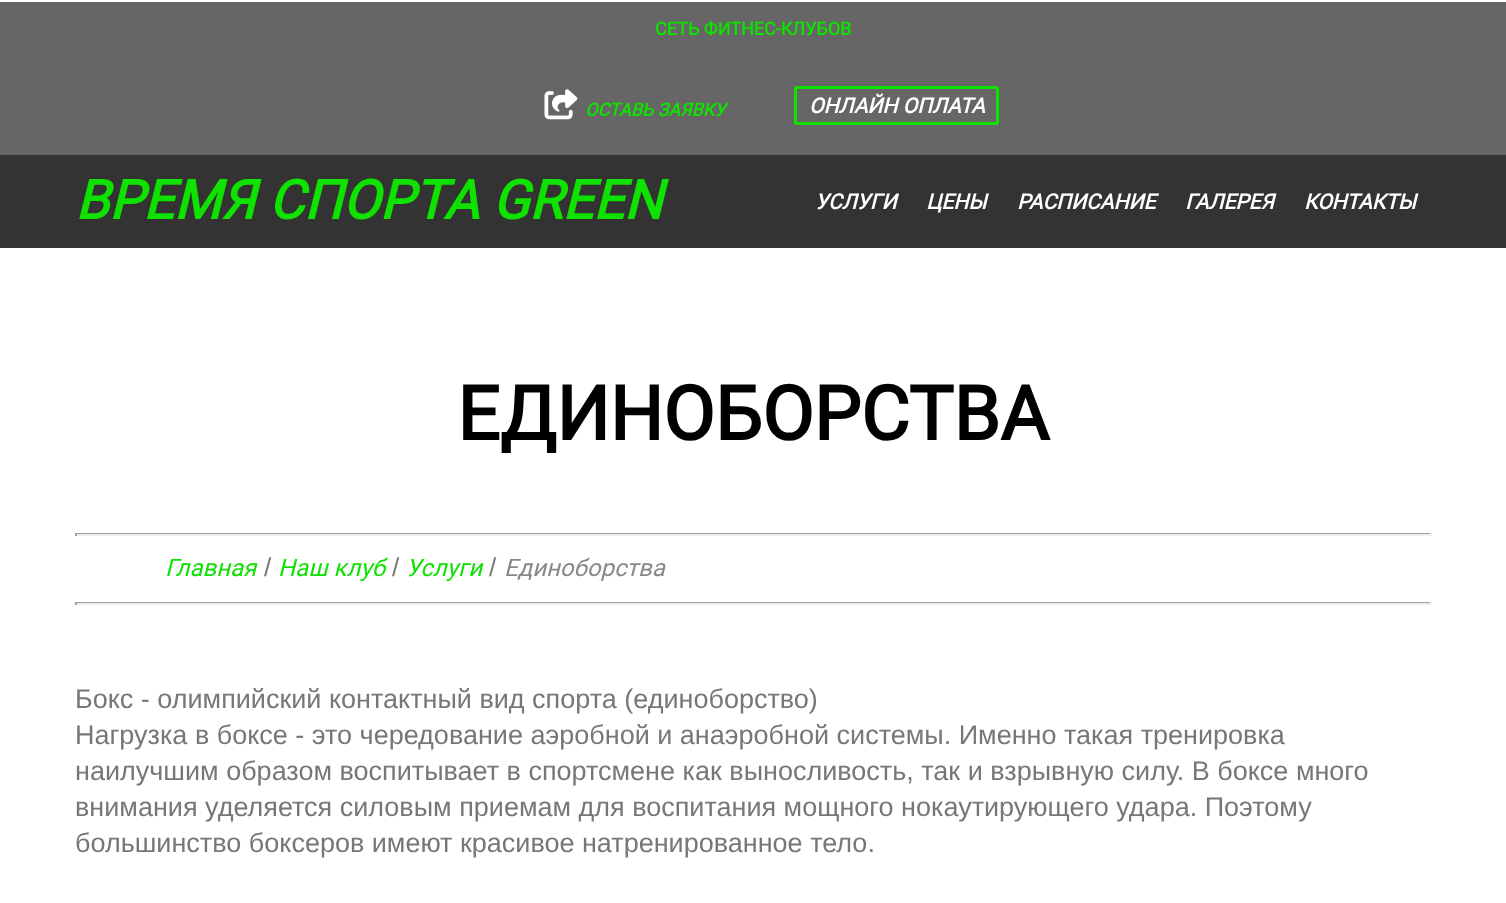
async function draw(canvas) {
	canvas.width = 1506;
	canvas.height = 903;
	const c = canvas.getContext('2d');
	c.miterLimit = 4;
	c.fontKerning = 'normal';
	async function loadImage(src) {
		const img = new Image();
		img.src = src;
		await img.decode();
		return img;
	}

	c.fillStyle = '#fff';
	c.fillRect(0, 0, 1506, 903);
	c.fillStyle = '#666';
	c.fillRect(0, 2, 1506, 153);
	c.font = 'bold 18px Roboto';
	c.fillStyle = '#0fe100';
	c.fillText('СЕТЬ ФИТНЕС-КЛУБОВ', 655, 35);
	c.drawImage(await loadImage('img1.png'), 544, 89, 34, 31);
	c.font = 'italic bold 18px Roboto';
	c.fillText('ОСТАВЬ ЗАЯВКУ', 585, 116);
	c.beginPath();
	c.roundRect(795.5, 87.5, 202, 36, 1.5);
	c.strokeStyle = '#0fe100';
	c.lineWidth = 3;
	c.stroke();
	c.font = 'italic bold 21px Roboto';
	c.fillStyle = '#fff';
	c.fillText('ОНЛАЙН ОПЛАТА', 809, 113);
	c.fillStyle = '#333';
	c.fillRect(0, 155, 1506, 93);
	c.font = 'italic bold 54px Roboto';
	c.fillStyle = '#0fe100';
	c.fillText('ВРЕМЯ СПОРТА GREEN', 75, 219);
	c.font = 'italic bold 21px Roboto';
	c.fillStyle = '#fff';
	for (const [text, x, y] of [
		['УСЛУГИ', 815, 209],
		['ЦЕНЫ', 926, 209],
		['РАСПИСАНИЕ', 1017, 209],
		['ГАЛЕРЕЯ', 1185, 209],
		['КОНТАКТЫ', 1304, 209],
	]) {
		c.fillText(text, x, y);
	}
	c.save();
	c.beginPath();
	c.rect(75, 375, 1356, 78);
	c.clip();
	c.font = 'bold 75px Roboto';
	c.fillStyle = '#000';
	c.fillText('ЕДИНОБОРСТВА', 457, 440);
	c.restore();
	for (const [x, y, w, h, color] of [
		[75, 533, 1356, 1, '#9f9f9f'],
		[1430, 533, 2, 3, '#eee'],
		[75, 534, 1356, 2, '#eee'],
		[75, 533, 2, 3, '#9f9f9f'],
	]) {
		c.fillStyle = color;
		c.fillRect(x, y, w, h);
	}
	c.font = 'italic 24px Roboto';
	c.fillStyle = '#0fe100';
	c.fillText('Главная', 165, 576);
	c.font = '26px Liberation Sans';
	c.fillStyle = '#777';
	c.fillText('/', 264, 576);
	c.font = 'italic 24px Roboto';
	c.fillStyle = '#0fe100';
	c.fillText('Наш клуб', 278, 576);
	c.font = '26px Liberation Sans';
	c.fillStyle = '#777';
	c.fillText('/', 392, 576);
	c.font = 'italic 24px Roboto';
	c.fillStyle = '#0fe100';
	c.fillText('Услуги', 406, 576);
	c.font = '26px Liberation Sans';
	c.fillStyle = '#777';
	c.fillText('/', 489, 576);
	c.font = 'italic 24px Roboto';
	c.fillStyle = '#888';
	c.fillText('Единоборства', 504, 576);
	for (const [x, y, w, h, color] of [
		[75, 602, 1356, 1, '#9f9f9f'],
		[1430, 602, 2, 3, '#eee'],
		[75, 603, 1356, 2, '#eee'],
		[75, 602, 2, 3, '#9f9f9f'],
	]) {
		c.fillStyle = color;
		c.fillRect(x, y, w, h);
	}
	c.font = '27px Liberation Sans';
	c.fillStyle = '#777';
	for (const [text, x, y] of [
		['Бокс - олимпийский контактный вид спорта (единоборство)', 75, 708],
		['Нагрузка в боксе - это чередование аэробной и анаэробной системы. Именно такая тренировка', 75, 744],
		['наилучшим образом воспитывает в спортсмене как выносливость, так и взрывную силу. В боксе много', 75, 780],
		['внимания уделяется силовым приемам для воспитания мощного нокаутирующего удара. Поэтому', 75, 816],
		['большинство боксеров имеют красивое натренированное тело.', 75, 852],
	]) {
		c.fillText(text, x, y);
	}
}

draw(document.querySelector('canvas'));
